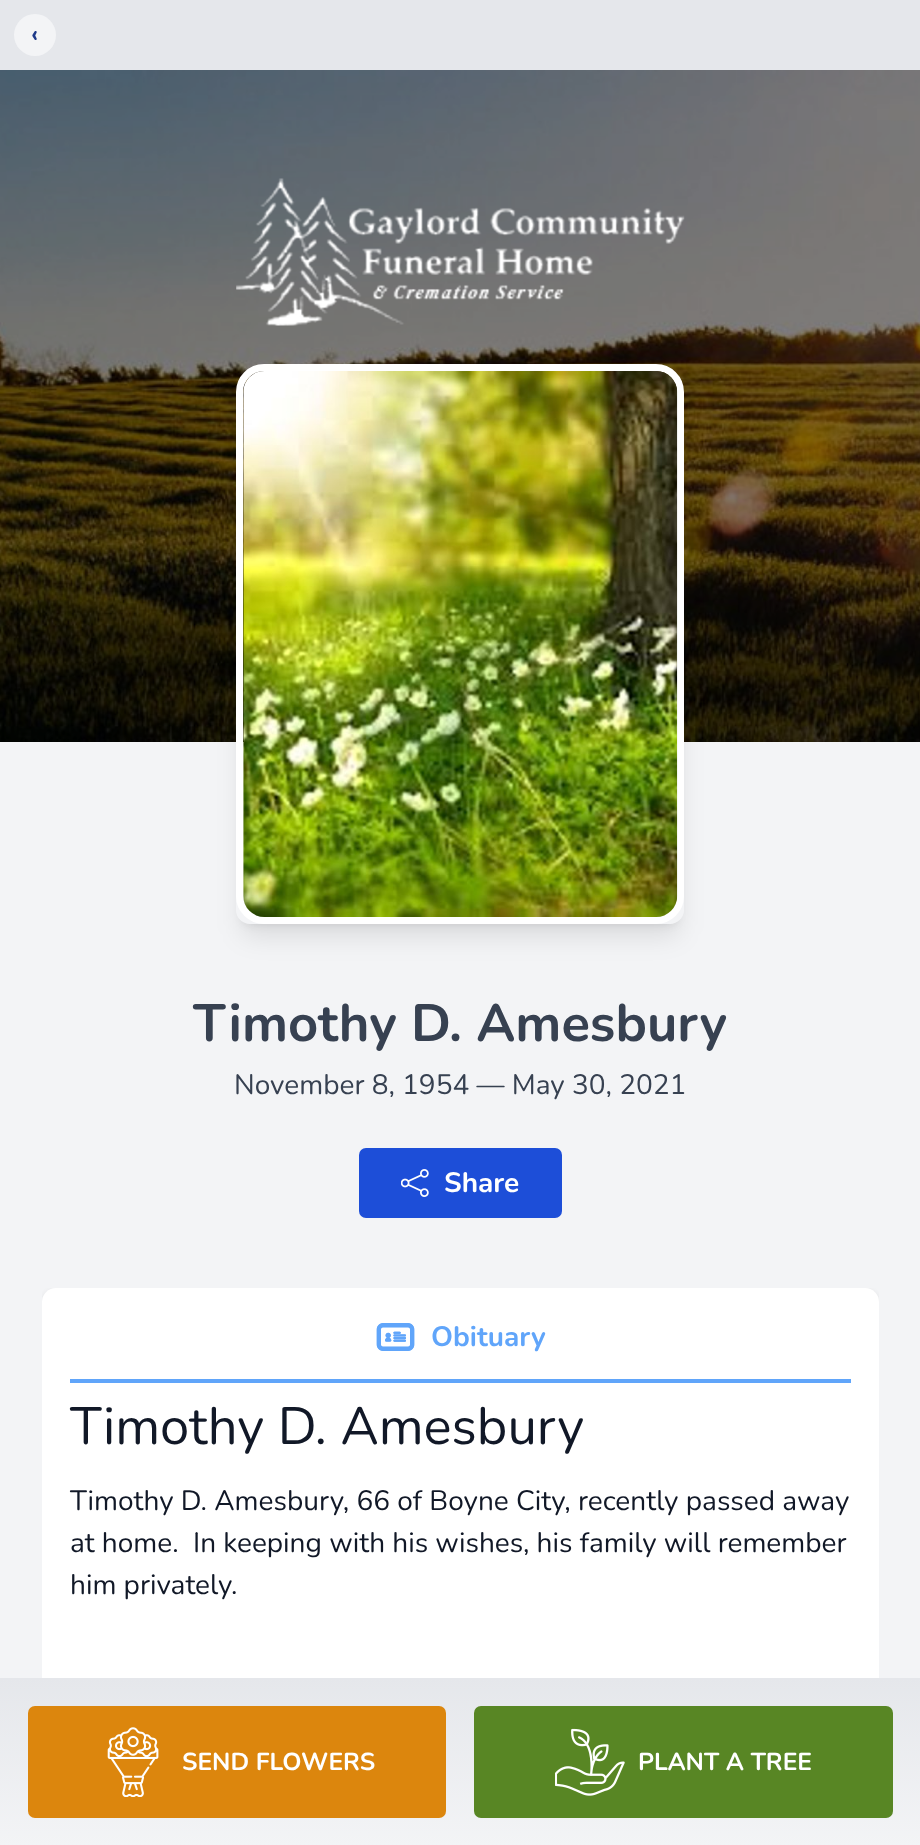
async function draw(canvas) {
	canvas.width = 920;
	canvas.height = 1845;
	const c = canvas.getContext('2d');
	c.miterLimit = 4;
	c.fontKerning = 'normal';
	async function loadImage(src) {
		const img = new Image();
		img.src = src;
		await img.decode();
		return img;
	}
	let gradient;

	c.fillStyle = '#f3f4f6';
	c.fillRect(0, 0, 920, 1845);
	c.fillStyle = '#e5e7eb';
	c.fillRect(0, 0, 920, 70);
	c.fillStyle = '#f3f4f6';
	c.beginPath();
	c.arc(35, 35, 21, 0, 2 * Math.PI);
	c.fill();
	c.font = 'bold 24.5px Nunito';
	c.fillStyle = '#1e3a8a';
	c.fillText('‹', 31, 42);
	c.drawImage(await loadImage('img1.png'), 0, 70, 920, 672);
	c.drawImage(await loadImage('img2.png'), 236, 178, 449, 148);
	c.save();
	c.beginPath();
	c.moveTo(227, 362);
	c.lineTo(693, 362);
	c.lineTo(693, 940);
	c.lineTo(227, 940);
	c.closePath();
	c.moveTo(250, 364);
	c.lineTo(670, 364);
	c.bezierCurveTo(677.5, 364, 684, 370.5, 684, 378);
	c.lineTo(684, 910);
	c.bezierCurveTo(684, 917.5, 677.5, 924, 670, 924);
	c.lineTo(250, 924);
	c.bezierCurveTo(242.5, 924, 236, 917.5, 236, 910);
	c.lineTo(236, 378);
	c.bezierCurveTo(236, 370.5, 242.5, 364, 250, 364);
	c.closePath();
	c.clip('evenodd');
	c.fillStyle = '#0000001a';
	c.filter = 'blur(5px)';
	c.beginPath();
	c.roundRect(243, 378, 434, 546, 7);
	c.fill();
	c.filter = 'none';
	c.restore();
	c.save();
	c.beginPath();
	c.moveTo(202, 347);
	c.lineTo(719, 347);
	c.lineTo(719, 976);
	c.lineTo(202, 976);
	c.closePath();
	c.moveTo(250, 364);
	c.lineTo(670, 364);
	c.bezierCurveTo(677.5, 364, 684, 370.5, 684, 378);
	c.lineTo(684, 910);
	c.bezierCurveTo(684, 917.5, 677.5, 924, 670, 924);
	c.lineTo(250, 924);
	c.bezierCurveTo(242.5, 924, 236, 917.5, 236, 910);
	c.lineTo(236, 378);
	c.bezierCurveTo(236, 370.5, 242.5, 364, 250, 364);
	c.closePath();
	c.clip('evenodd');
	c.fillStyle = '#0000001a';
	c.filter = 'blur(13px)';
	c.beginPath();
	c.roundRect(242, 387, 437, 549, 9);
	c.fill();
	c.filter = 'none';
	c.restore();
	c.beginPath();
	c.roundRect(239.5, 367.5, 441, 553, 24.5);
	c.strokeStyle = '#fff';
	c.lineWidth = 7;
	c.stroke();
	c.drawImage(await loadImage('img3.png'), 243, 371, 435, 546);
	c.font = 'bold 52.5px Nunito';
	c.fillStyle = '#374151';
	c.fillText('Timothy D. Amesbury', 193, 1041);
	c.font = '28px Nunito';
	c.fillText('November 8, 1954 — May 30, 2021', 234, 1094);
	c.fillStyle = '#1d4ed8';
	c.beginPath();
	c.roundRect(359, 1148, 203, 70, 7);
	c.fill();
	c.drawImage(await loadImage('img4.png'), 401, 1169, 28, 28);
	c.font = 'bold 28px Nunito';
	c.fillStyle = '#fff';
	c.fillText('Share', 444, 1192);
	c.save();
	c.beginPath();
	c.rect(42, 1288, 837, 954);
	c.clip();
	c.fillStyle = '#0000001a';
	c.filter = 'blur(2.5px)';
	c.beginPath();
	c.roundRect(42, 1290, 837, 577, 14);
	c.fill();
	c.filter = 'none';
	c.restore();
	c.beginPath();
	c.roundRect(42, 1288, 837, 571, 14);
	c.fill();
	c.fillStyle = '#60a5fa';
	c.fillRect(70, 1379, 781, 4);
	c.drawImage(await loadImage('img5.png'), 376, 1323, 39, 28);
	c.fillText('Obituary', 431, 1346);
	c.font = '52.5px Nunito';
	c.fillStyle = '#111827';
	c.fillText('Timothy D. Amesbury', 70, 1444);
	c.font = '28px Nunito';
	for (const [text, x, y] of [
		['Timothy D. Amesbury, 66 of Boyne City, recently passed away', 70, 1510],
		['at home.  In keeping with his wishes, his family will remember', 70, 1552],
		['him privately.', 70, 1594],
	]) {
		c.fillText(text, x, y);
	}
	gradient = c.createLinearGradient(460, 1678, 460, 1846);
	gradient.addColorStop(0, '#e5e7eb');
	gradient.addColorStop(1, '#f3f4f6');
	c.fillStyle = gradient;
	c.fillRect(0, 1678, 920, 167);
	c.fillStyle = '#dc860d';
	c.beginPath();
	c.roundRect(28, 1706, 418, 112, 7);
	c.fill();
	c.drawImage(await loadImage('img6.png'), 107, 1727, 52, 70);
	c.font = 'bold 24.5px Nunito';
	c.fillStyle = '#fff';
	c.fillText('SEND FLOWERS', 182, 1770);
	c.fillStyle = '#588624';
	c.beginPath();
	c.roundRect(474, 1706, 419, 112, 7);
	c.fill();
	c.drawImage(await loadImage('img7.png'), 555, 1728, 70, 68);
	c.fillStyle = '#fff';
	c.fillText('PLANT A TREE', 638, 1770);
}

draw(document.querySelector('canvas'));
